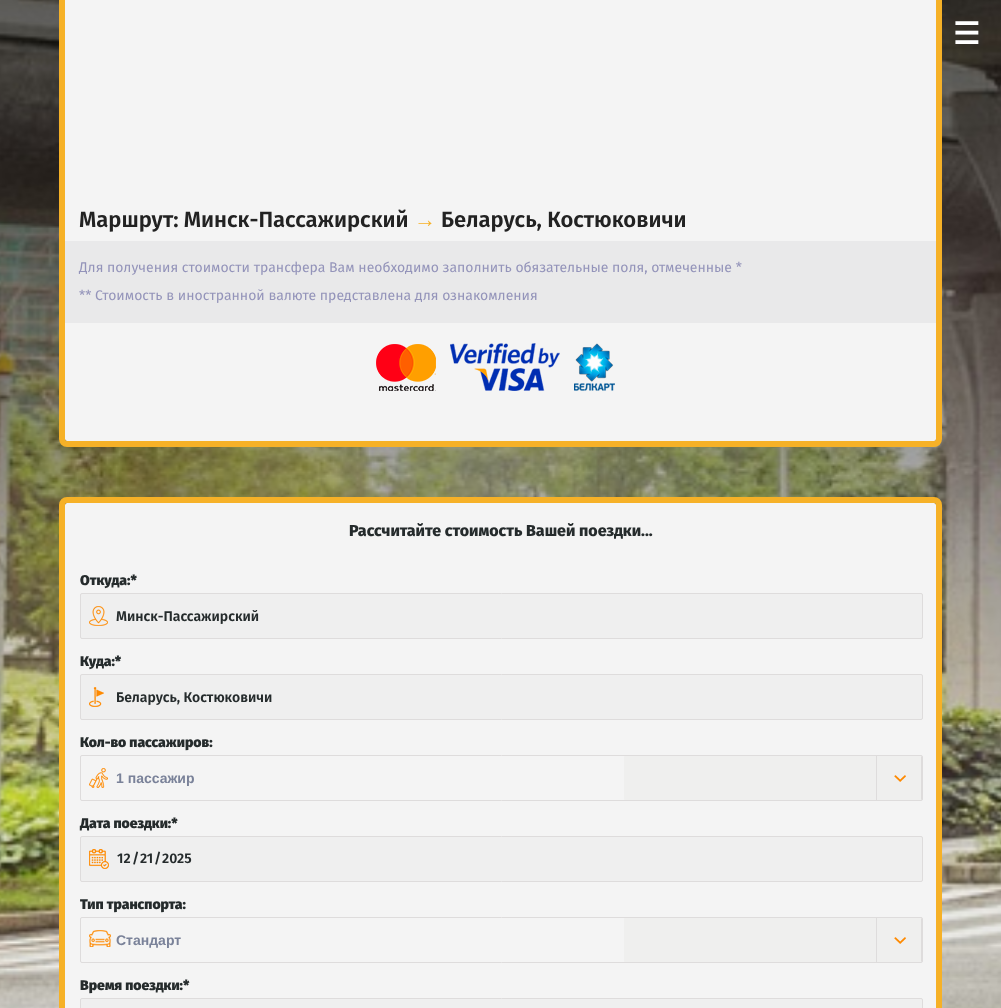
async function draw(canvas) {
	canvas.width = 1001;
	canvas.height = 1008;
	const c = canvas.getContext('2d');
	c.miterLimit = 4;
	c.fontKerning = 'normal';
	async function loadImage(src) {
		const img = new Image();
		img.src = src;
		await img.decode();
		return img;
	}

	c.fillStyle = '#fff';
	c.fillRect(0, 0, 1001, 1008);
	c.drawImage(await loadImage('img1.png'), 0, 0, 1001, 1008);
	c.font = 'bold 30px DejaVu Sans';
	c.fillText('☰', 953, 44);
	c.fillStyle = '#f4f4f4';
	c.beginPath();
	c.roundRect(65, -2, 871, 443, 2);
	c.fill();
	c.beginPath();
	c.roundRect(62, -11, 877, 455, 5);
	c.strokeStyle = '#f6b127';
	c.lineWidth = 6;
	c.stroke();
	c.font = '600 22px Fira Sans';
	c.fillStyle = '#222';
	c.fillText('Маршрут: Минск-Пассажирский', 79, 227);
	c.font = 'bold 22px Liberation Sans';
	c.fillStyle = '#f6b127';
	c.fillText('→', 414, 227);
	c.font = '600 22px Fira Sans';
	c.fillStyle = '#222';
	c.fillText('Беларусь, Костюковичи', 441, 227);
	c.fillStyle = '#e9e9ea';
	c.fillRect(65, 241, 871, 82);
	c.font = '14px Fira Sans';
	c.fillStyle = '#9494ba';
	c.fillText('Для получения стоимости трансфера Вам необходимо заполнить обязательные поля, отмеченные *', 79, 272);
	c.fillText('** Стоимость в иностранной валюте представлена для ознакомления', 79, 300);
	c.drawImage(await loadImage('img2.png'), 376, 344, 60, 47);
	c.drawImage(await loadImage('img3.png'), 450, 343, 110, 48);
	c.drawImage(await loadImage('img4.png'), 574, 343, 41, 48);
	c.fillStyle = '#f4f4f4';
	c.beginPath();
	c.moveTo(67, 503);
	c.lineTo(934, 503);
	c.bezierCurveTo(935, 503, 936, 504, 936, 505);
	c.lineTo(936, 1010);
	c.lineTo(65, 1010);
	c.lineTo(65, 505);
	c.bezierCurveTo(65, 504, 66, 503, 67, 503);
	c.closePath();
	c.fill();
	c.beginPath();
	c.roundRect(62, 500, 877, 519, 5);
	c.stroke();
	c.font = '800 16px Fira Sans';
	c.fillStyle = '#252b2c';
	c.fillText('Рассчитайте стоимость Вашей поездки...', 349, 536);
	c.font = '900 14px Fira Sans';
	c.fillText('Откуда:*', 80, 585);
	c.fillStyle = '#efefef';
	c.beginPath();
	c.roundRect(80.5, 593.5, 842, 45, 1.5);
	c.fill();
	c.strokeStyle = '#dedcdc';
	c.lineWidth = 1;
	c.stroke();
	c.drawImage(await loadImage('img5.png'), 89, 606, 19, 20);
	c.font = '600 14px Fira Sans';
	c.fillStyle = '#252b2c';
	c.fillText('Минск-Пассажирский', 116, 621);
	c.font = '900 14px Fira Sans';
	c.fillText('Куда:*', 80, 666);
	c.fillStyle = '#efefef';
	c.beginPath();
	c.roundRect(80.5, 674.5, 842, 45, 1.5);
	c.fill();
	c.stroke();
	c.drawImage(await loadImage('img6.png'), 89, 687, 15, 20);
	c.font = '600 14px Fira Sans';
	c.fillStyle = '#252b2c';
	c.fillText('Беларусь, Костюковичи', 116, 702);
	c.font = '900 14px Fira Sans';
	c.fillText('Кол-во пассажиров:', 80, 747);
	c.drawImage(await loadImage('img8.png'), 624, 756, 298, 44);
	c.beginPath();
	c.roundRect(80.5, 755.5, 842, 45, 1.5);
	c.stroke();
	c.drawImage(await loadImage('img7.png'), 89, 768, 19, 20);
	c.font = 'bold 14px Liberation Sans';
	c.fillStyle = '#7a8299';
	c.fillText('1 пассажир', 116, 783);
	c.font = '900 14px Fira Sans';
	c.fillStyle = '#252b2c';
	c.fillText('Дата поездки:*', 80, 828);
	c.fillStyle = '#efefef';
	c.beginPath();
	c.roundRect(80.5, 836.5, 842, 45, 1.5);
	c.fill();
	c.stroke();
	c.drawImage(await loadImage('img9.png'), 89, 849, 20, 20);
	c.font = '600 14px Fira Sans';
	c.fillStyle = '#252b2c';
	for (const [text, x, y] of [
		['12', 117, 863],
		['/', 132, 863],
		['21', 140, 863],
		['/', 154, 863],
		['2025', 162, 863],
	]) {
		c.fillText(text, x, y);
	}
	c.font = '900 14px Fira Sans';
	c.fillText('Тип транспорта:', 80, 909);
	c.drawImage(await loadImage('img8.png'), 624, 918, 298, 44);
	c.beginPath();
	c.roundRect(80.5, 917.5, 842, 45, 1.5);
	c.stroke();
	c.drawImage(await loadImage('img10.png'), 89, 930, 22, 17);
	c.font = 'bold 14px Liberation Sans';
	c.fillStyle = '#7a8299';
	c.fillText('Стандарт', 116, 945);
	c.font = '900 14px Fira Sans';
	c.fillStyle = '#252b2c';
	c.fillText('Время поездки:*', 80, 990);
	c.fillStyle = '#efefef';
	c.beginPath();
	c.roundRect(81, 999, 841, 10, 1);
	c.fill();
	c.beginPath();
	c.roundRect(80.5, 998.5, 842, 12, 1.5);
	c.stroke();
}

draw(document.querySelector('canvas'));
